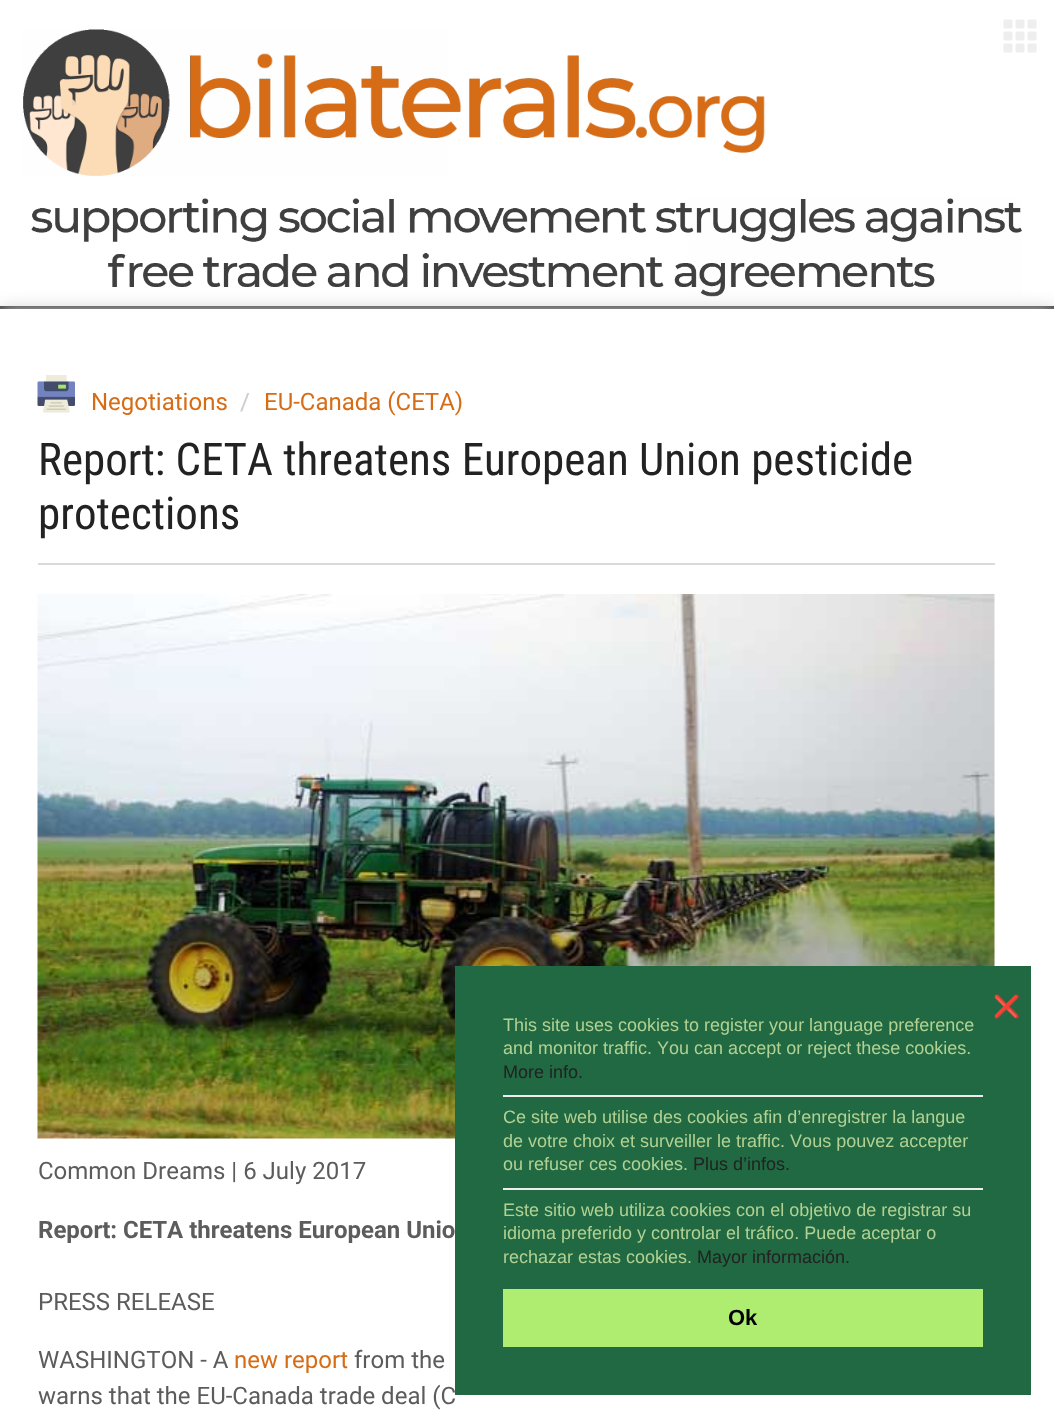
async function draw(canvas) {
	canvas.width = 1054;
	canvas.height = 1418;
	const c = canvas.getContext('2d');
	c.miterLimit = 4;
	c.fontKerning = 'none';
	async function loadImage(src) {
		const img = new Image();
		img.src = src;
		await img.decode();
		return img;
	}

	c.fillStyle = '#fff';
	c.fillRect(0, 0, 1054, 1418);
	c.fillStyle = '#3a3a3a';
	c.fillRect(0, 306, 1054, 3);
	c.drawImage(await loadImage('img1.png'), 23, 29, 742, 147);
	c.drawImage(await loadImage('img2.png'), 1003, 19, 34, 34);
	c.drawImage(await loadImage('img3.png'), 31, 198, 991, 99);
	c.save();
	c.beginPath();
	c.rect(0, 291, 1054, 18);
	c.clip();
	c.fillStyle = '#ccc';
	c.filter = 'blur(9px)';
	c.beginPath();
	c.rect(0, 309, 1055, 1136);
	c.fill();
	c.filter = 'none';
	c.restore();
	c.fillStyle = '#dadada';
	c.fillRect(38, 563, 957, 2);
	c.drawImage(await loadImage('img4.png'), 37, 375, 38, 38);
	c.font = '24px Roboto';
	c.fillStyle = '#d76c16';
	c.fillText('Negotiations', 91, 410);
	c.fillStyle = '#ccc';
	c.fillText('/', 240, 410);
	c.fillStyle = '#d76c16';
	c.fillText('EU-Canada (CETA)', 264, 410);
	c.font = '45px Roboto Condensed';
	c.fillStyle = '#222';
	c.fillText('Report: CETA threatens European Union pesticide', 38, 475);
	c.fillText('protections', 38, 529);
	c.drawImage(await loadImage('img5.png'), 37, 594, 958, 545);
	c.font = '24px Roboto';
	c.fillStyle = '#5c5c5c';
	c.fillText('Common Dreams | 6 July 2017', 38, 1179);
	c.font = 'bold 24px Roboto';
	c.fillText('Report: CETA threatens European Unio', 38, 1238);
	c.font = '24px Roboto';
	c.fillText('PRESS RELEASE', 38, 1310);
	c.fillText('WASHINGTON - A', 38, 1368);
	c.fillStyle = '#d76c16';
	c.fillText('new report', 234, 1368);
	c.fillStyle = '#5c5c5c';
	c.fillText('from the', 354, 1368);
	c.fillText('warns that the EU-Canada trade deal (C', 38, 1404);
	c.fillStyle = '#216942';
	c.fillRect(455, 966, 576, 429);
	c.font = '22px Noto Color Emoji';
	c.fillStyle = '#a4c78a';
	c.fillText('❌', 993, 1014);
	c.font = '18px Liberation Sans';
	c.fillStyle = '#b2d192';
	c.fillText('This site uses cookies to register your language preference', 503, 1031);
	c.fillText('and monitor traffic. You can accept or reject these cookies.', 503, 1054);
	c.fillStyle = '#222';
	c.fillText('More info.', 503, 1078);
	c.fillStyle = '#eee';
	c.fillRect(503, 1095, 480, 2);
	c.fillStyle = '#b2d192';
	for (const [text, x, y] of [
		['Ce site web utilise des cookies afin d’enregistrer la langue', 503, 1123],
		['de votre choix et surveiller le traffic. Vous pouvez accepter', 503, 1147],
		['ou refuser ces cookies.', 503, 1170],
	]) {
		c.fillText(text, x, y);
	}
	c.fillStyle = '#222';
	c.fillText('Plus d’infos.', 693, 1170);
	c.fillStyle = '#eee';
	c.fillRect(503, 1188, 480, 2);
	c.fillStyle = '#b2d192';
	for (const [text, x, y] of [
		['Este sitio web utiliza cookies con el objetivo de registrar su', 503, 1216],
		['idioma preferido y controlar el tráfico. Puede aceptar o', 503, 1239],
		['rechazar estas cookies.', 503, 1263],
	]) {
		c.fillText(text, x, y);
	}
	c.fillStyle = '#222';
	c.fillText('Mayor información.', 697, 1263);
	c.fillStyle = '#afed71';
	c.fillRect(503, 1289, 480, 58);
	c.font = 'bold 22px Liberation Sans';
	c.fillStyle = '#000';
	c.fillText('Ok', 728, 1325);
}

draw(document.querySelector('canvas'));
